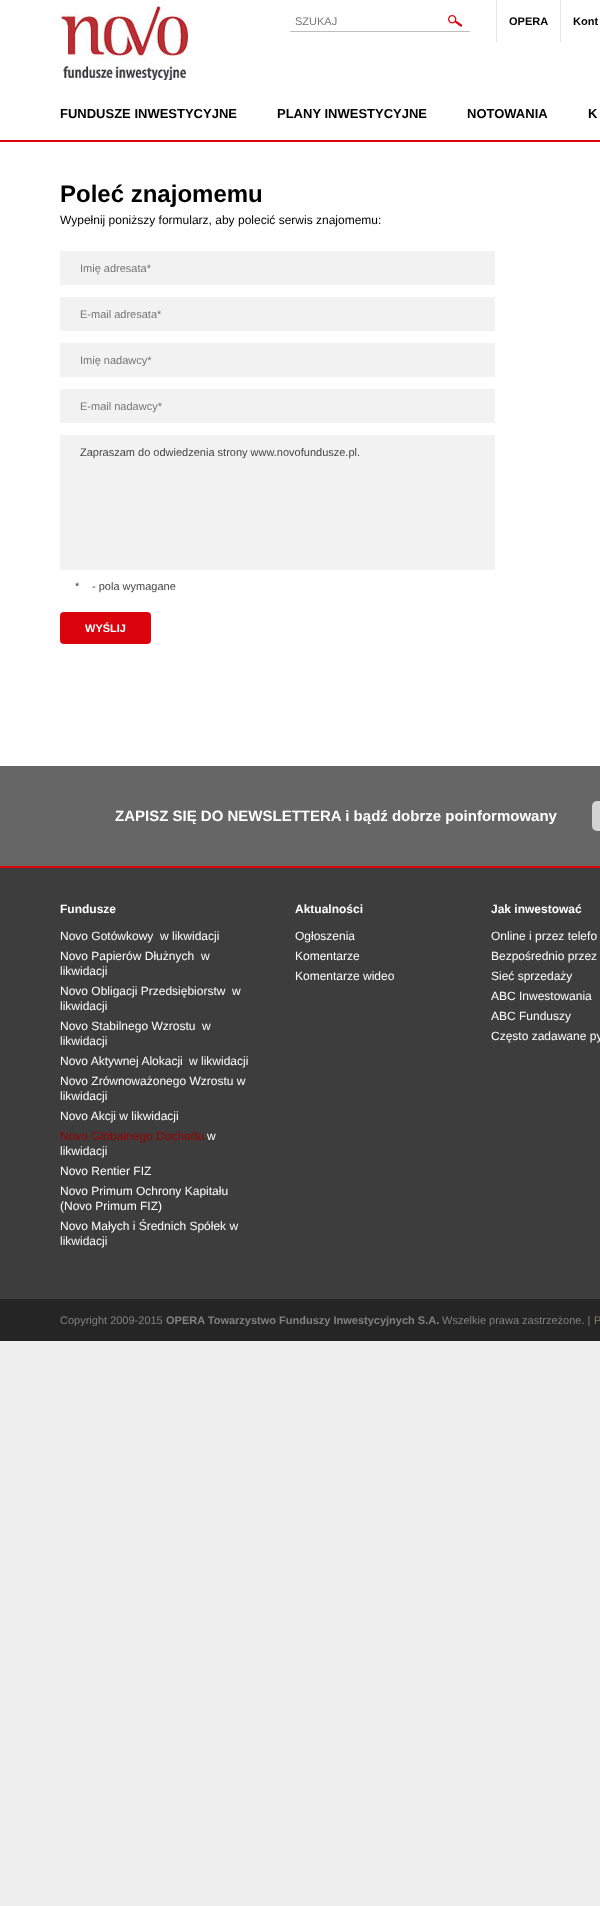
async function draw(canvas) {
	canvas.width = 600;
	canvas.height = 1906;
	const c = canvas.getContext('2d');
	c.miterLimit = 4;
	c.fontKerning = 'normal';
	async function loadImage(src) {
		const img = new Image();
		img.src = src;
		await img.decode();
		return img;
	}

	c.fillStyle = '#eee';
	c.fillRect(0, 0, 600, 1906);
	c.fillStyle = '#fff';
	c.fillRect(0, 0, 600, 140);
	c.fillStyle = '#db030c';
	c.fillRect(0, 140, 600, 2);
	c.drawImage(await loadImage('img1.png'), 60, 5, 128, 75);
	c.fillStyle = '#bfbfbf';
	c.fillRect(290, 31, 180, 1);
	c.font = '11px Liberation Sans';
	c.fillStyle = '#757575';
	c.fillText('SZUKAJ', 295, 25);
	c.drawImage(await loadImage('img2.png'), 448, 15, 15, 12);
	c.fillStyle = '#e5e5e5';
	c.fillRect(496, 0, 1, 42);
	c.font = 'bold 11px Liberation Sans';
	c.fillStyle = '#000';
	c.fillText('OPERA', 509, 25);
	c.fillStyle = '#e5e5e5';
	c.fillRect(560, 0, 1, 42);
	c.fillStyle = '#000';
	c.fillText('Kont', 573, 25);
	c.font = 'bold 13px Liberation Sans';
	for (const [text, x, y] of [
		['FUNDUSZE INWESTYCYJNE', 60, 118],
		['PLANY INWESTYCYJNE', 277, 118],
		['NOTOWANIA', 467, 118],
		['K', 588, 118],
	]) {
		c.fillText(text, x, y);
	}
	c.fillStyle = '#fff';
	c.fillRect(0, 142, 600, 624);
	c.font = 'bold 24px Liberation Sans';
	c.fillStyle = '#000';
	c.fillText('Poleć znajomemu', 60, 202);
	c.font = '12px Liberation Sans';
	c.fillText('Wypełnij poniższy formularz, aby polecić serwis znajomemu:', 60, 224);
	c.fillStyle = '#f2f2f2';
	c.fillRect(60, 251, 435, 34);
	c.font = '11px Liberation Sans';
	c.fillStyle = '#757575';
	c.fillText('Imię adresata*', 80, 272);
	c.fillStyle = '#f2f2f2';
	c.fillRect(60, 297, 435, 34);
	c.fillStyle = '#757575';
	c.fillText('E-mail adresata*', 80, 318);
	c.fillStyle = '#f2f2f2';
	c.fillRect(60, 343, 435, 34);
	c.save();
	c.beginPath();
	c.rect(80, 354, 395, 12);
	c.clip();
	c.fillStyle = '#757575';
	c.fillText('Imię nadawcy*', 80, 364);
	c.restore();
	c.fillRect(60, 389, 435, 34);
	c.fillStyle = '#757575';
	c.fillText('E-mail nadawcy*', 80, 410);
	c.fillStyle = '#f2f2f2';
	c.fillRect(60, 435, 435, 135);
	c.fillStyle = '#444';
	for (const [text, x, y] of [
		['Zapraszam do odwiedzenia strony www.novofundusze.pl.', 80, 456],
		['*', 75, 590],
		['- pola wymagane', 92, 590],
	]) {
		c.fillText(text, x, y);
	}
	c.fillStyle = '#db030c';
	c.beginPath();
	c.roundRect(60, 612, 91, 32, 4);
	c.fill();
	c.font = 'bold 11px Liberation Sans';
	c.fillStyle = '#fff';
	c.fillText('WYŚLIJ', 85, 632);
	c.fillStyle = '#666';
	c.fillRect(0, 766, 600, 100);
	c.fillStyle = '#db030c';
	c.fillRect(0, 866, 600, 2);
	c.font = 'bold 15px Liberation Sans';
	c.fillStyle = '#fff';
	c.fillText('ZAPISZ SIĘ DO NEWSLETTERA i bądź dobrze poinformowany', 115, 821);
	c.fillStyle = '#d3d3d3';
	c.beginPath();
	c.roundRect(592, 801, 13, 30, 5);
	c.fill();
	c.fillStyle = '#3d3d3d';
	c.fillRect(0, 868, 600, 431);
	c.font = 'bold 12px Liberation Sans';
	c.fillStyle = '#fff';
	c.fillText('Fundusze', 60, 913);
	c.font = '12px Liberation Sans';
	for (const [text, x, y] of [
		['Novo Gotówkowy', 60, 940],
		['w likwidacji', 160, 940],
		['Novo Papierów Dłużnych', 60, 960],
		['w', 201, 960],
		['likwidacji', 60, 975],
		['Novo Obligacji Przedsiębiorstw', 60, 995],
		['w', 232, 995],
		['likwidacji', 60, 1010],
		['Novo Stabilnego Wzrostu', 60, 1030],
		['w', 202, 1030],
		['likwidacji', 60, 1045],
		['Novo Aktywnej Alokacji', 60, 1065],
		['w likwidacji', 189, 1065],
		['Novo Zrównoważonego Wzrostu w', 60, 1085],
		['likwidacji', 60, 1100],
		['Novo Akcji w likwidacji', 60, 1120],
	]) {
		c.fillText(text, x, y);
	}
	c.fillStyle = '#900';
	c.fillText('Novo Globalnego Dochodu', 60, 1140);
	c.fillStyle = '#fff';
	for (const [text, x, y] of [
		['w', 207, 1140],
		['likwidacji', 60, 1155],
		['Novo Rentier FIZ', 60, 1175],
		['Novo Primum Ochrony Kapitału', 60, 1195],
		['(Novo Primum FIZ)', 60, 1210],
		['Novo Małych i Średnich Spółek w', 60, 1230],
		['likwidacji', 60, 1245],
	]) {
		c.fillText(text, x, y);
	}
	c.font = 'bold 12px Liberation Sans';
	c.fillText('Aktualności', 295, 913);
	c.font = '12px Liberation Sans';
	for (const [text, x, y] of [
		['Ogłoszenia', 295, 940],
		['Komentarze', 295, 960],
		['Komentarze wideo', 295, 980],
	]) {
		c.fillText(text, x, y);
	}
	c.font = 'bold 12px Liberation Sans';
	c.fillText('Jak inwestować', 491, 913);
	c.font = '12px Liberation Sans';
	for (const [text, x, y] of [
		['Online i przez telefo', 491, 940],
		['Bezpośrednio przez', 491, 960],
		['Sieć sprzedaży', 491, 980],
		['ABC Inwestowania', 491, 1000],
		['ABC Funduszy', 491, 1020],
		['Często zadawane py', 491, 1040],
	]) {
		c.fillText(text, x, y);
	}
	c.fillStyle = '#252525';
	c.fillRect(0, 1299, 600, 42);
	c.save();
	c.beginPath();
	c.rect(60, 1314, 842, 12);
	c.clip();
	c.font = '11px Liberation Sans';
	c.fillStyle = '#818181';
	c.fillText('Copyright 2009-2015', 60, 1324);
	c.font = 'bold 11px Liberation Sans';
	c.fillText('OPERA Towarzystwo Funduszy Inwestycyjnych S.A.', 166, 1324);
	c.font = '11px Liberation Sans';
	c.fillText('Wszelkie prawa zastrzeżone. |', 442, 1324);
	c.restore();
	c.font = '11px Liberation Sans';
	c.fillStyle = '#877d66';
	c.fillText('P', 594, 1324);
}

draw(document.querySelector('canvas'));
